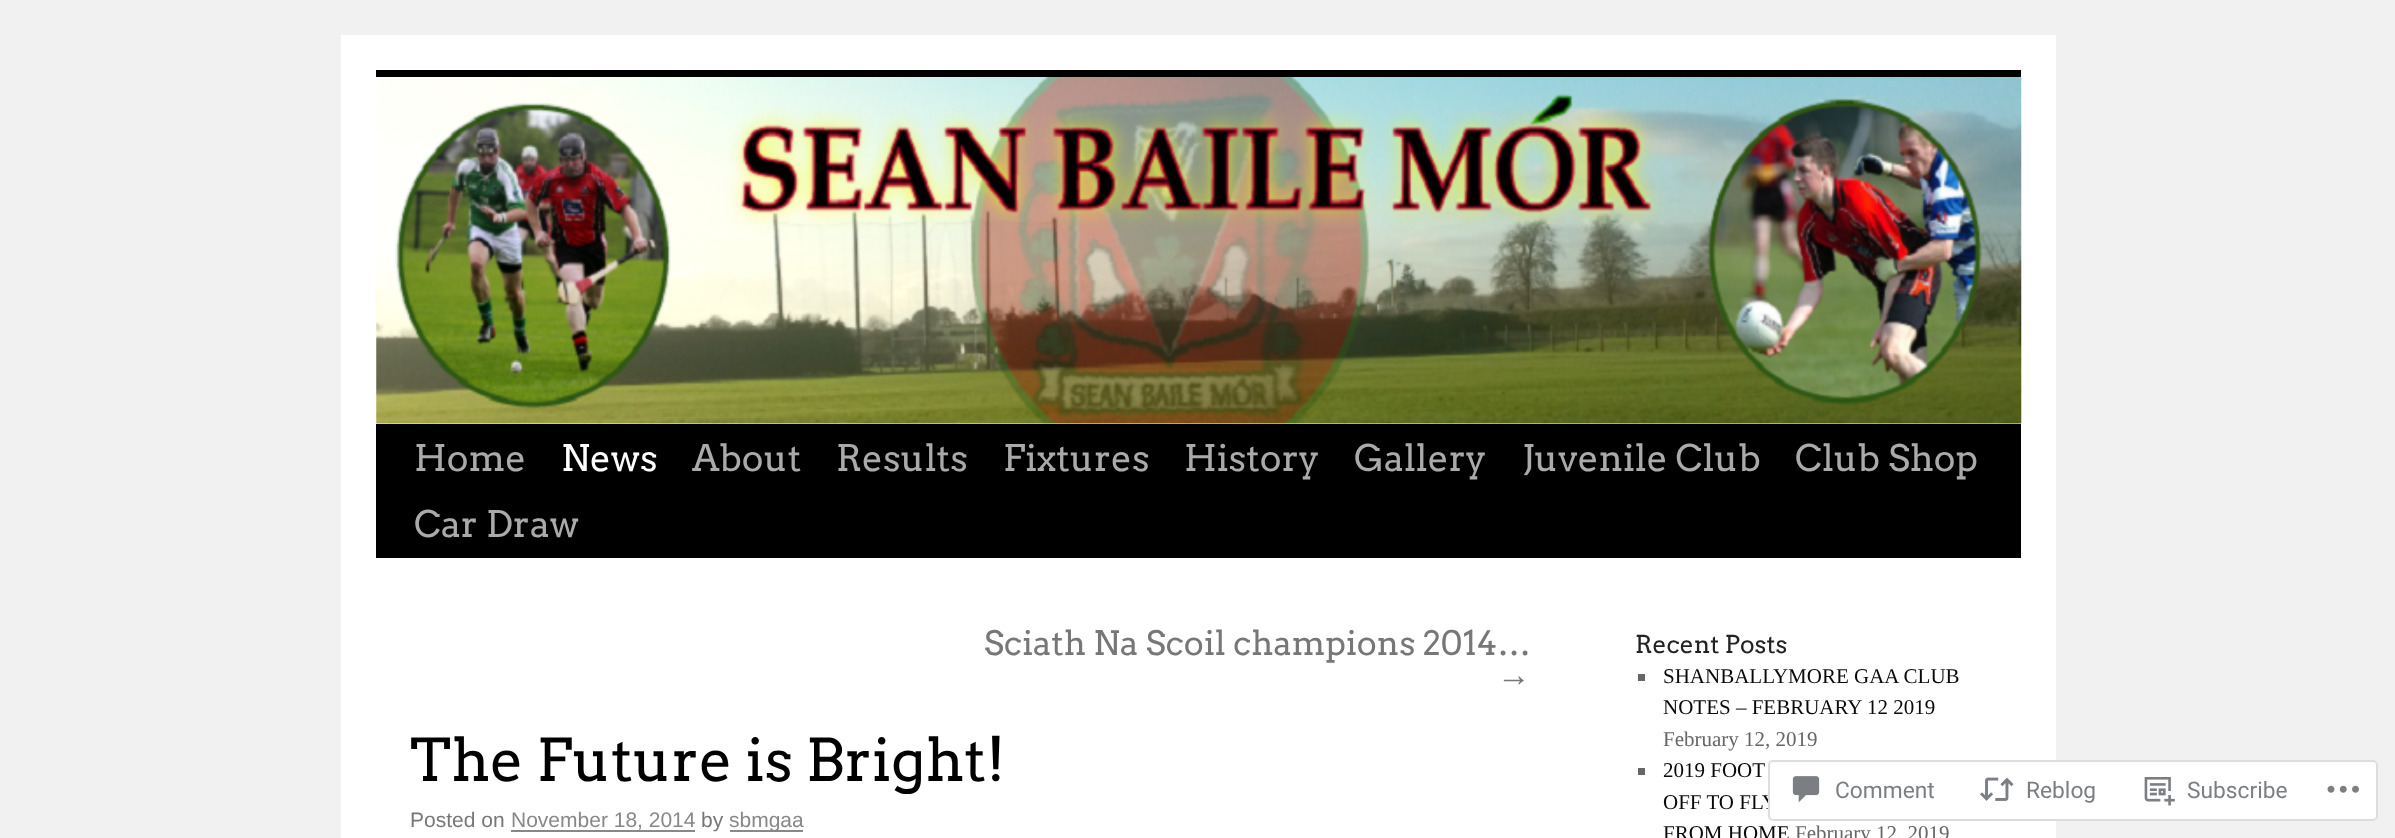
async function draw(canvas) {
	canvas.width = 2395;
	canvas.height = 838;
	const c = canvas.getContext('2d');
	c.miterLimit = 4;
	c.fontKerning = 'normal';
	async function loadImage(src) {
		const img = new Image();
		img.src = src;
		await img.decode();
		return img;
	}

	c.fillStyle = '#f1f1f1';
	c.fillRect(0, 0, 2395, 838);
	for (const [x, y, w, h, color] of [
		[341, 35, 1715, 803, '#fff'],
		[376, 70, 1645, 7, '#000'],
		[376, 424, 1645, 134, '#000'],
	]) {
		c.fillStyle = color;
		c.fillRect(x, y, w, h);
	}
	c.drawImage(await loadImage('img1.png'), 376, 77, 1646, 347);
	c.font = '36.5px Arvo';
	c.fillStyle = '#aaa';
	c.fillText('Home', 414, 471);
	c.fillStyle = '#fff';
	c.fillText('News', 561, 471);
	c.fillStyle = '#aaa';
	for (const [text, x, y] of [
		['About', 692, 471],
		['Results', 836, 471],
		['Fixtures', 1003, 471],
		['History', 1184, 471],
		['Gallery', 1354, 471],
		['Juvenile Club', 1522, 471],
		['Club Shop', 1795, 471],
		['Car Draw', 414, 537],
	]) {
		c.fillText(text, x, y);
	}
	c.font = '33.6px Arvo';
	c.fillStyle = '#777';
	c.fillText('Sciath Na Scoil champions 2014…', 984, 655);
	c.font = '33.6px Liberation Serif';
	c.fillText('→', 1497, 686);
	c.font = '58.75px Arvo';
	c.fillStyle = '#000';
	c.fillText('The Future is Bright!', 410, 781);
	c.font = '21px Liberation Sans';
	c.fillStyle = '#777';
	c.fillText('Posted on', 410, 827);
	c.fillStyle = '#888';
	c.fillText('November 18, 2014', 511, 827);
	c.fillRect(511, 830, 184, 2);
	c.fillStyle = '#777';
	c.fillText('by', 701, 827);
	c.fillStyle = '#888';
	c.fillRect(730, 830, 73, 2);
	c.fillText('sbmgaa', 729, 827);
	c.font = '24.5px Arvo';
	c.fillStyle = '#222';
	c.fillText('Recent Posts', 1635, 653);
	c.fillStyle = '#666';
	c.fillRect(1638, 674, 7, 7);
	c.font = '21px Liberation Serif';
	c.fillStyle = '#0a0909';
	c.fillText('SHANBALLYMORE GAA CLUB', 1663, 683);
	c.fillText('NOTES – FEBRUARY 12 2019', 1663, 714);
	c.fillStyle = '#666';
	c.fillText('February 12, 2019', 1663, 746);
	c.fillRect(1638, 768, 7, 7);
	c.fillStyle = '#0a0909';
	for (const [text, x, y] of [
		['2019 FOOT', 1663, 777],
		['OFF TO FLY', 1663, 809],
		['FROM HOME', 1663, 840],
	]) {
		c.fillText(text, x, y);
	}
	c.fillStyle = '#666';
	c.fillText('February 12, 2019', 1795, 840);
	c.fillStyle = '#fffffffa';
	c.beginPath();
	c.roundRect(1768, 760, 610, 61, 5);
	c.fill();
	c.beginPath();
	c.roundRect(1769, 761, 608, 59, 4);
	c.strokeStyle = '#dcdcdefa';
	c.lineWidth = 2;
	c.stroke();
	c.drawImage(await loadImage('img2.png'), 1792, 776, 28, 27);
	c.font = '22.75px Roboto';
	c.fillStyle = '#7b7f84';
	c.fillText('Comment', 1835, 798);
	c.drawImage(await loadImage('img3.png'), 1980, 777, 34, 24);
	c.fillText('Reblog', 2026, 798);
	c.drawImage(await loadImage('img4.png'), 2144, 777, 31, 29);
	c.fillText('Subscribe', 2187, 798);
	c.drawImage(await loadImage('img5.png'), 2327, 785, 32, 8);
}

draw(document.querySelector('canvas'));
